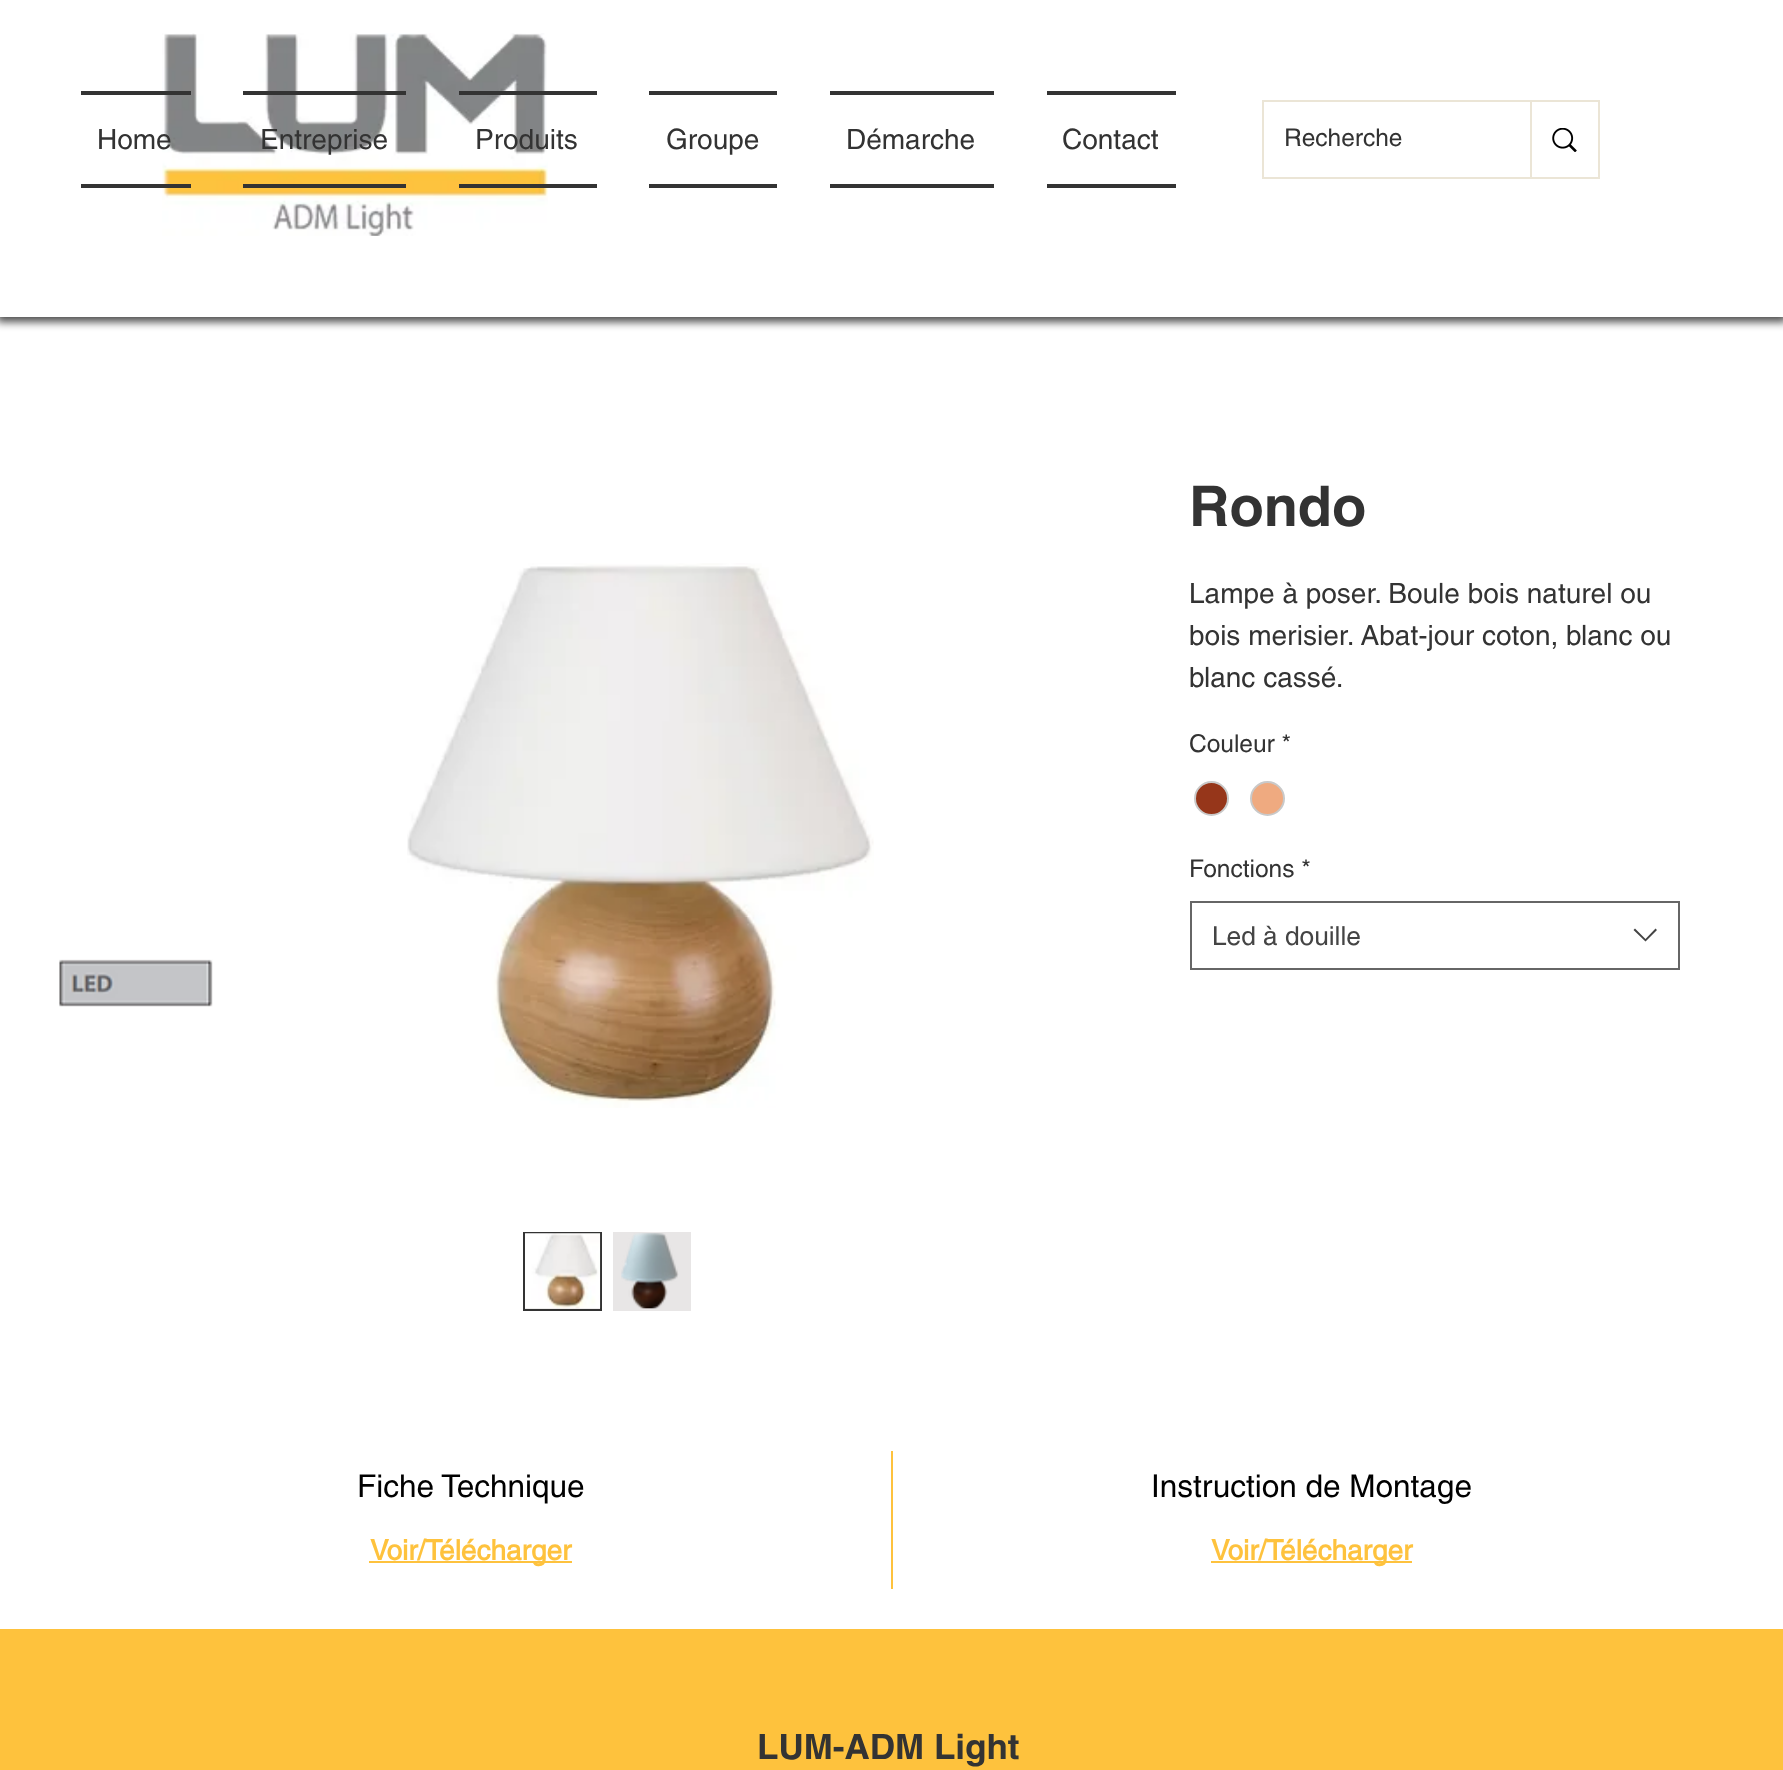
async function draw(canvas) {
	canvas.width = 1783;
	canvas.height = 1770;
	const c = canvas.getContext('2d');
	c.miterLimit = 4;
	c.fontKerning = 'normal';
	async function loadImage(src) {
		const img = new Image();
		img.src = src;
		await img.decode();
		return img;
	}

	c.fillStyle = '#fff';
	c.fillRect(0, 0, 1783, 1770);
	c.fillStyle = '#000000b3';
	c.filter = 'blur(4.5px)';
	c.beginPath();
	c.rect(-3, -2, 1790, 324);
	c.fill();
	c.filter = 'none';
	c.fillStyle = '#fff';
	c.fillRect(0, 0, 1783, 317);
	c.drawImage(await loadImage('img1.png'), 162, 33, 386, 203);
	c.fillStyle = '#333';
	c.fillRect(81, 91, 110, 4);
	c.fillRect(81, 184, 110, 4);
	c.font = '28px helvetica';
	c.fillText('Home', 97, 149);
	c.fillRect(243, 91, 163, 4);
	c.fillRect(243, 184, 163, 4);
	c.fillText('Entreprise', 260, 149);
	c.fillRect(459, 91, 138, 4);
	c.fillRect(459, 184, 138, 4);
	c.fillText('Produits', 475, 149);
	c.fillRect(649, 91, 128, 4);
	c.fillRect(649, 184, 128, 4);
	c.fillText('Groupe', 666, 149);
	c.fillRect(830, 91, 164, 4);
	c.fillRect(830, 184, 164, 4);
	c.fillText('Démarche', 846, 149);
	c.fillRect(1047, 91, 129, 4);
	c.fillRect(1047, 184, 129, 4);
	c.fillText('Contact', 1062, 149);
	c.strokeStyle = '#ebe5d6';
	c.lineWidth = 2;
	c.strokeRect(1263, 101, 336, 77);
	c.font = '24.5px helvetica';
	c.fillText('Recherche', 1284, 146);
	c.fillStyle = '#ebe5d6';
	c.fillRect(1530, 102, 2, 75);
	c.drawImage(await loadImage('img2.png'), 1552, 128, 25, 24);
	c.drawImage(await loadImage('img3.png'), 59, 959, 154, 48);
	c.drawImage(await loadImage('img4.png'), 407, 563, 467, 545);
	c.fillStyle = '#e8e6e6';
	c.fillRect(525, 1308, 75, 1);
	c.strokeStyle = '#333';
	c.strokeRect(524, 1233, 77, 77);
	c.drawImage(await loadImage('img5.png'), 525, 1233, 76, 76);
	c.fillRect(613, 1232, 78, 79);
	c.drawImage(await loadImage('img6.png'), 621, 1233, 58, 76);
	c.font = 'bold 56px helvetica';
	c.fillStyle = '#333';
	c.fillText('Rondo', 1189, 526);
	c.font = '28px helvetica';
	for (const [text, x, y] of [
		['Lampe à poser. Boule bois naturel ou', 1189, 603],
		['bois merisier. Abat-jour coton, blanc ou', 1189, 645],
		['blanc cassé.', 1189, 687],
	]) {
		c.fillText(text, x, y);
	}
	c.font = '24.5px helvetica';
	c.fillText('Couleur *', 1189, 752);
	c.fillStyle = '#96361a';
	c.beginPath();
	c.arc(1211.5, 798.5, 16.5, 0, 2 * Math.PI);
	c.fill();
	c.strokeStyle = '#c9c9c9';
	c.stroke();
	c.fillStyle = '#efaa80';
	c.beginPath();
	c.arc(1267.5, 798.5, 16.5, 0, 2 * Math.PI);
	c.fill();
	c.stroke();
	c.fillStyle = '#333';
	c.fillText('Fonctions *', 1189, 877);
	c.strokeStyle = '#666';
	c.strokeRect(1191, 902, 488, 67);
	c.font = '26.25px helvetica';
	c.fillStyle = '#444';
	c.fillText('Led à douille', 1212, 945);
	c.beginPath();
	c.moveTo(1655.5, 928.5);
	c.lineTo(1657, 930);
	c.lineTo(1645.5, 941.5);
	c.lineTo(1633.5, 930);
	c.lineTo(1635, 928.5);
	c.lineTo(1645.5, 939);
	c.closePath();
	c.fill('evenodd');
	c.fillStyle = '#fec23d';
	c.fillRect(891, 1451, 2, 138);
	c.font = '31.5px helvetica';
	c.fillStyle = '#000';
	c.fillText('Fiche Technique', 357, 1497);
	c.fillStyle = '#fec23d';
	c.fillRect(369, 1561, 203, 2);
	c.font = 'bold 28px "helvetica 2"';
	c.fillText('Voir/Télécharger', 370, 1560);
	c.font = '31.5px helvetica';
	c.fillStyle = '#000';
	c.fillText('Instruction de Montage', 1151, 1497);
	c.fillStyle = '#fec23d';
	c.fillRect(1211, 1561, 201, 2);
	c.font = 'bold 28px "helvetica 2"';
	c.fillText('Voir/Télécharger', 1211, 1560);
	c.fillRect(0, 1629, 1783, 141);
	c.font = 'bold 35px helvetica';
	c.fillStyle = '#333';
	c.fillText('LUM-ADM Light', 757, 1759);
}

draw(document.querySelector('canvas'));
